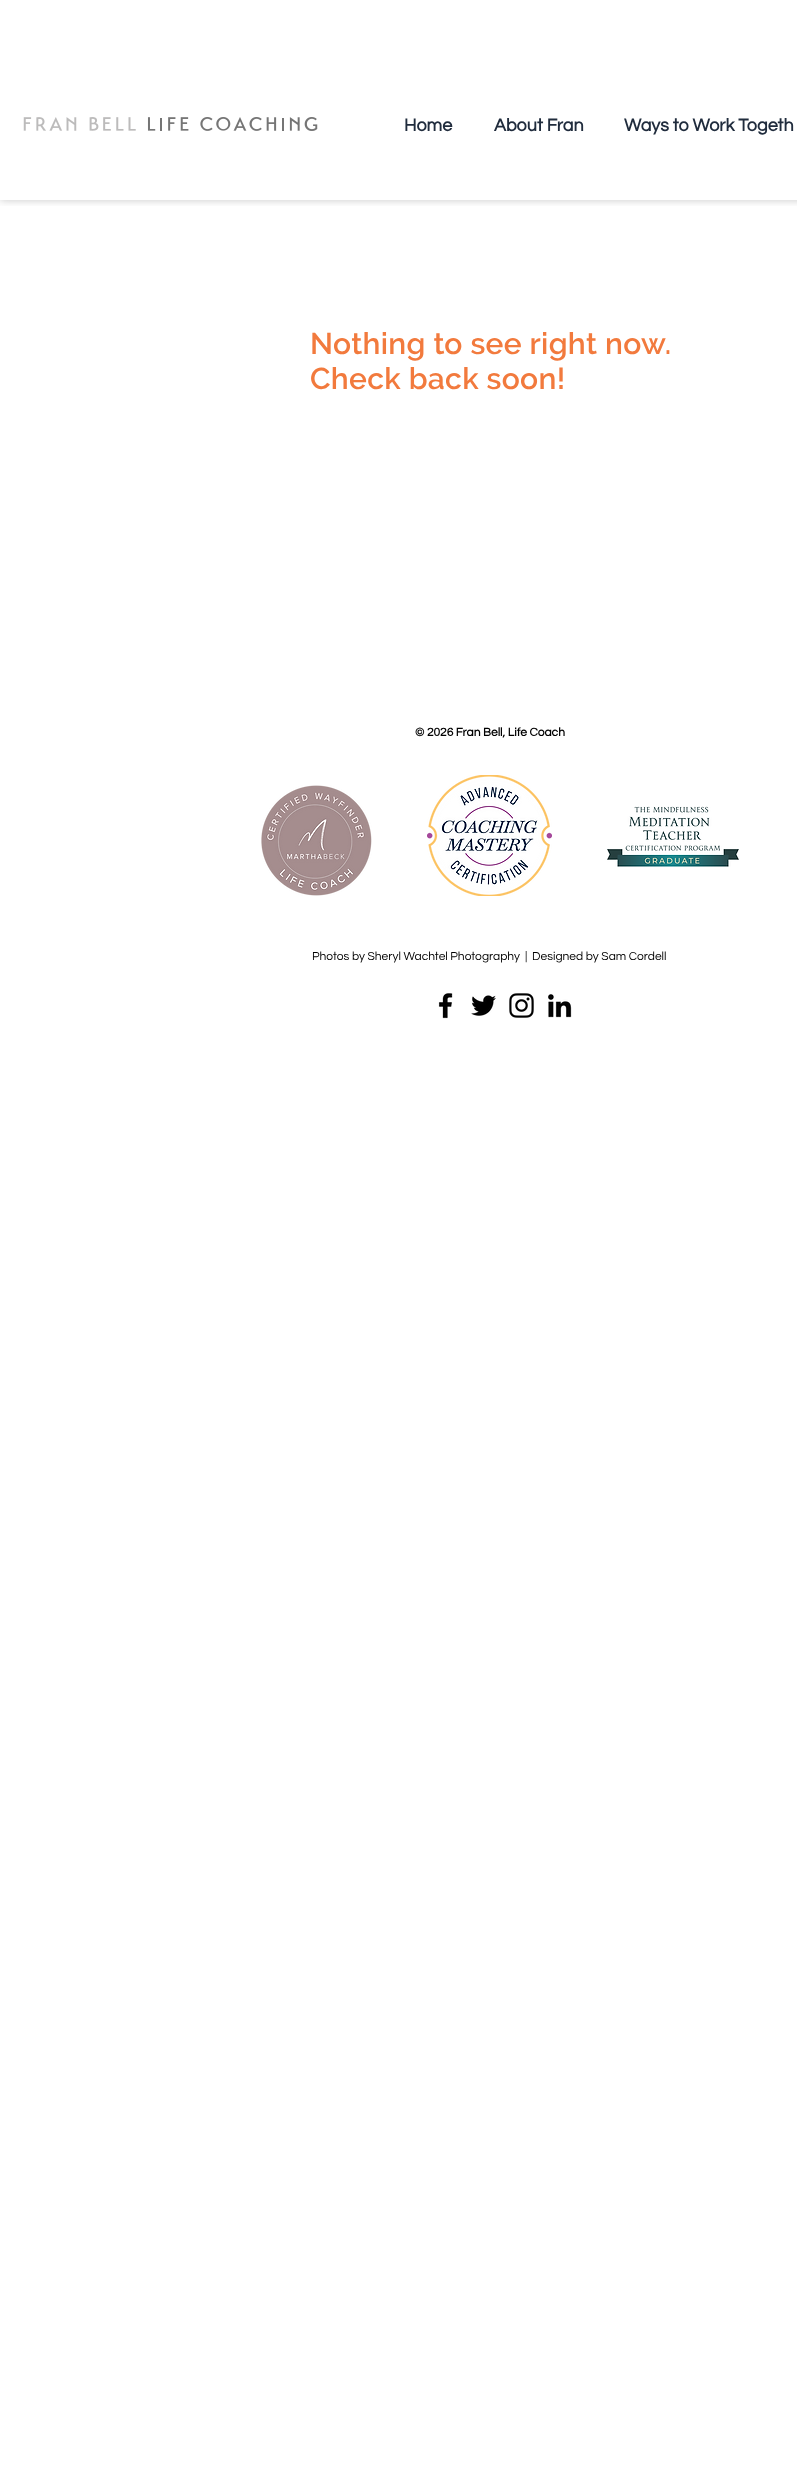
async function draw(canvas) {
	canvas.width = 797;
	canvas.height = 2476;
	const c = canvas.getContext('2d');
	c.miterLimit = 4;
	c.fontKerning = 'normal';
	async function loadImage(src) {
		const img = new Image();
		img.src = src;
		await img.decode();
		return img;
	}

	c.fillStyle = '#fff';
	c.fillRect(0, 0, 797, 2476);
	c.save();
	c.beginPath();
	c.rect(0, 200, 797, 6);
	c.clip();
	c.fillStyle = '#00000038';
	c.filter = 'blur(4.5px)';
	c.beginPath();
	c.rect(0, 0, 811, 200);
	c.fill();
	c.filter = 'none';
	c.restore();
	c.drawImage(await loadImage('img1.png'), 23, 117, 295, 14);
	c.font = 'bold 18px Questrial';
	c.fillStyle = '#202c3d';
	for (const [text, x, y] of [
		['Home', 404, 131],
		['About Fran', 494, 131],
		['Ways to Work Togeth', 624, 131],
	]) {
		c.fillText(text, x, y);
	}
	c.letterSpacing = '0.3px';
	c.font = '600 30px Raleway';
	c.fillStyle = '#f27a3d';
	c.fillText('Nothing to see right now.', 310, 354);
	c.fillText('Check back soon!', 310, 389);
	c.letterSpacing = '0px';
	c.font = 'bold 12px Questrial';
	c.fillStyle = '#000';
	c.fillText('© 2026 Fran Bell, Life Coach', 415, 736);
	c.font = '12px Questrial';
	c.fillText('Photos by Sheryl Wachtel Photography  |', 312, 960);
	c.fillText('Designed by Sam Cordell', 532, 960);
	c.drawImage(await loadImage('img2.png'), 261, 785, 111, 111);
	c.drawImage(await loadImage('img3.png'), 427, 775, 125, 121);
	c.drawImage(await loadImage('img4.png'), 607, 806, 132, 61);
	c.drawImage(await loadImage('img5.png'), 438, 993, 15, 26);
	c.drawImage(await loadImage('img6.png'), 471, 995, 25, 21);
	c.drawImage(await loadImage('img7.png'), 509, 993, 25, 25);
	c.drawImage(await loadImage('img8.png'), 548, 994, 24, 24);
}

draw(document.querySelector('canvas'));
